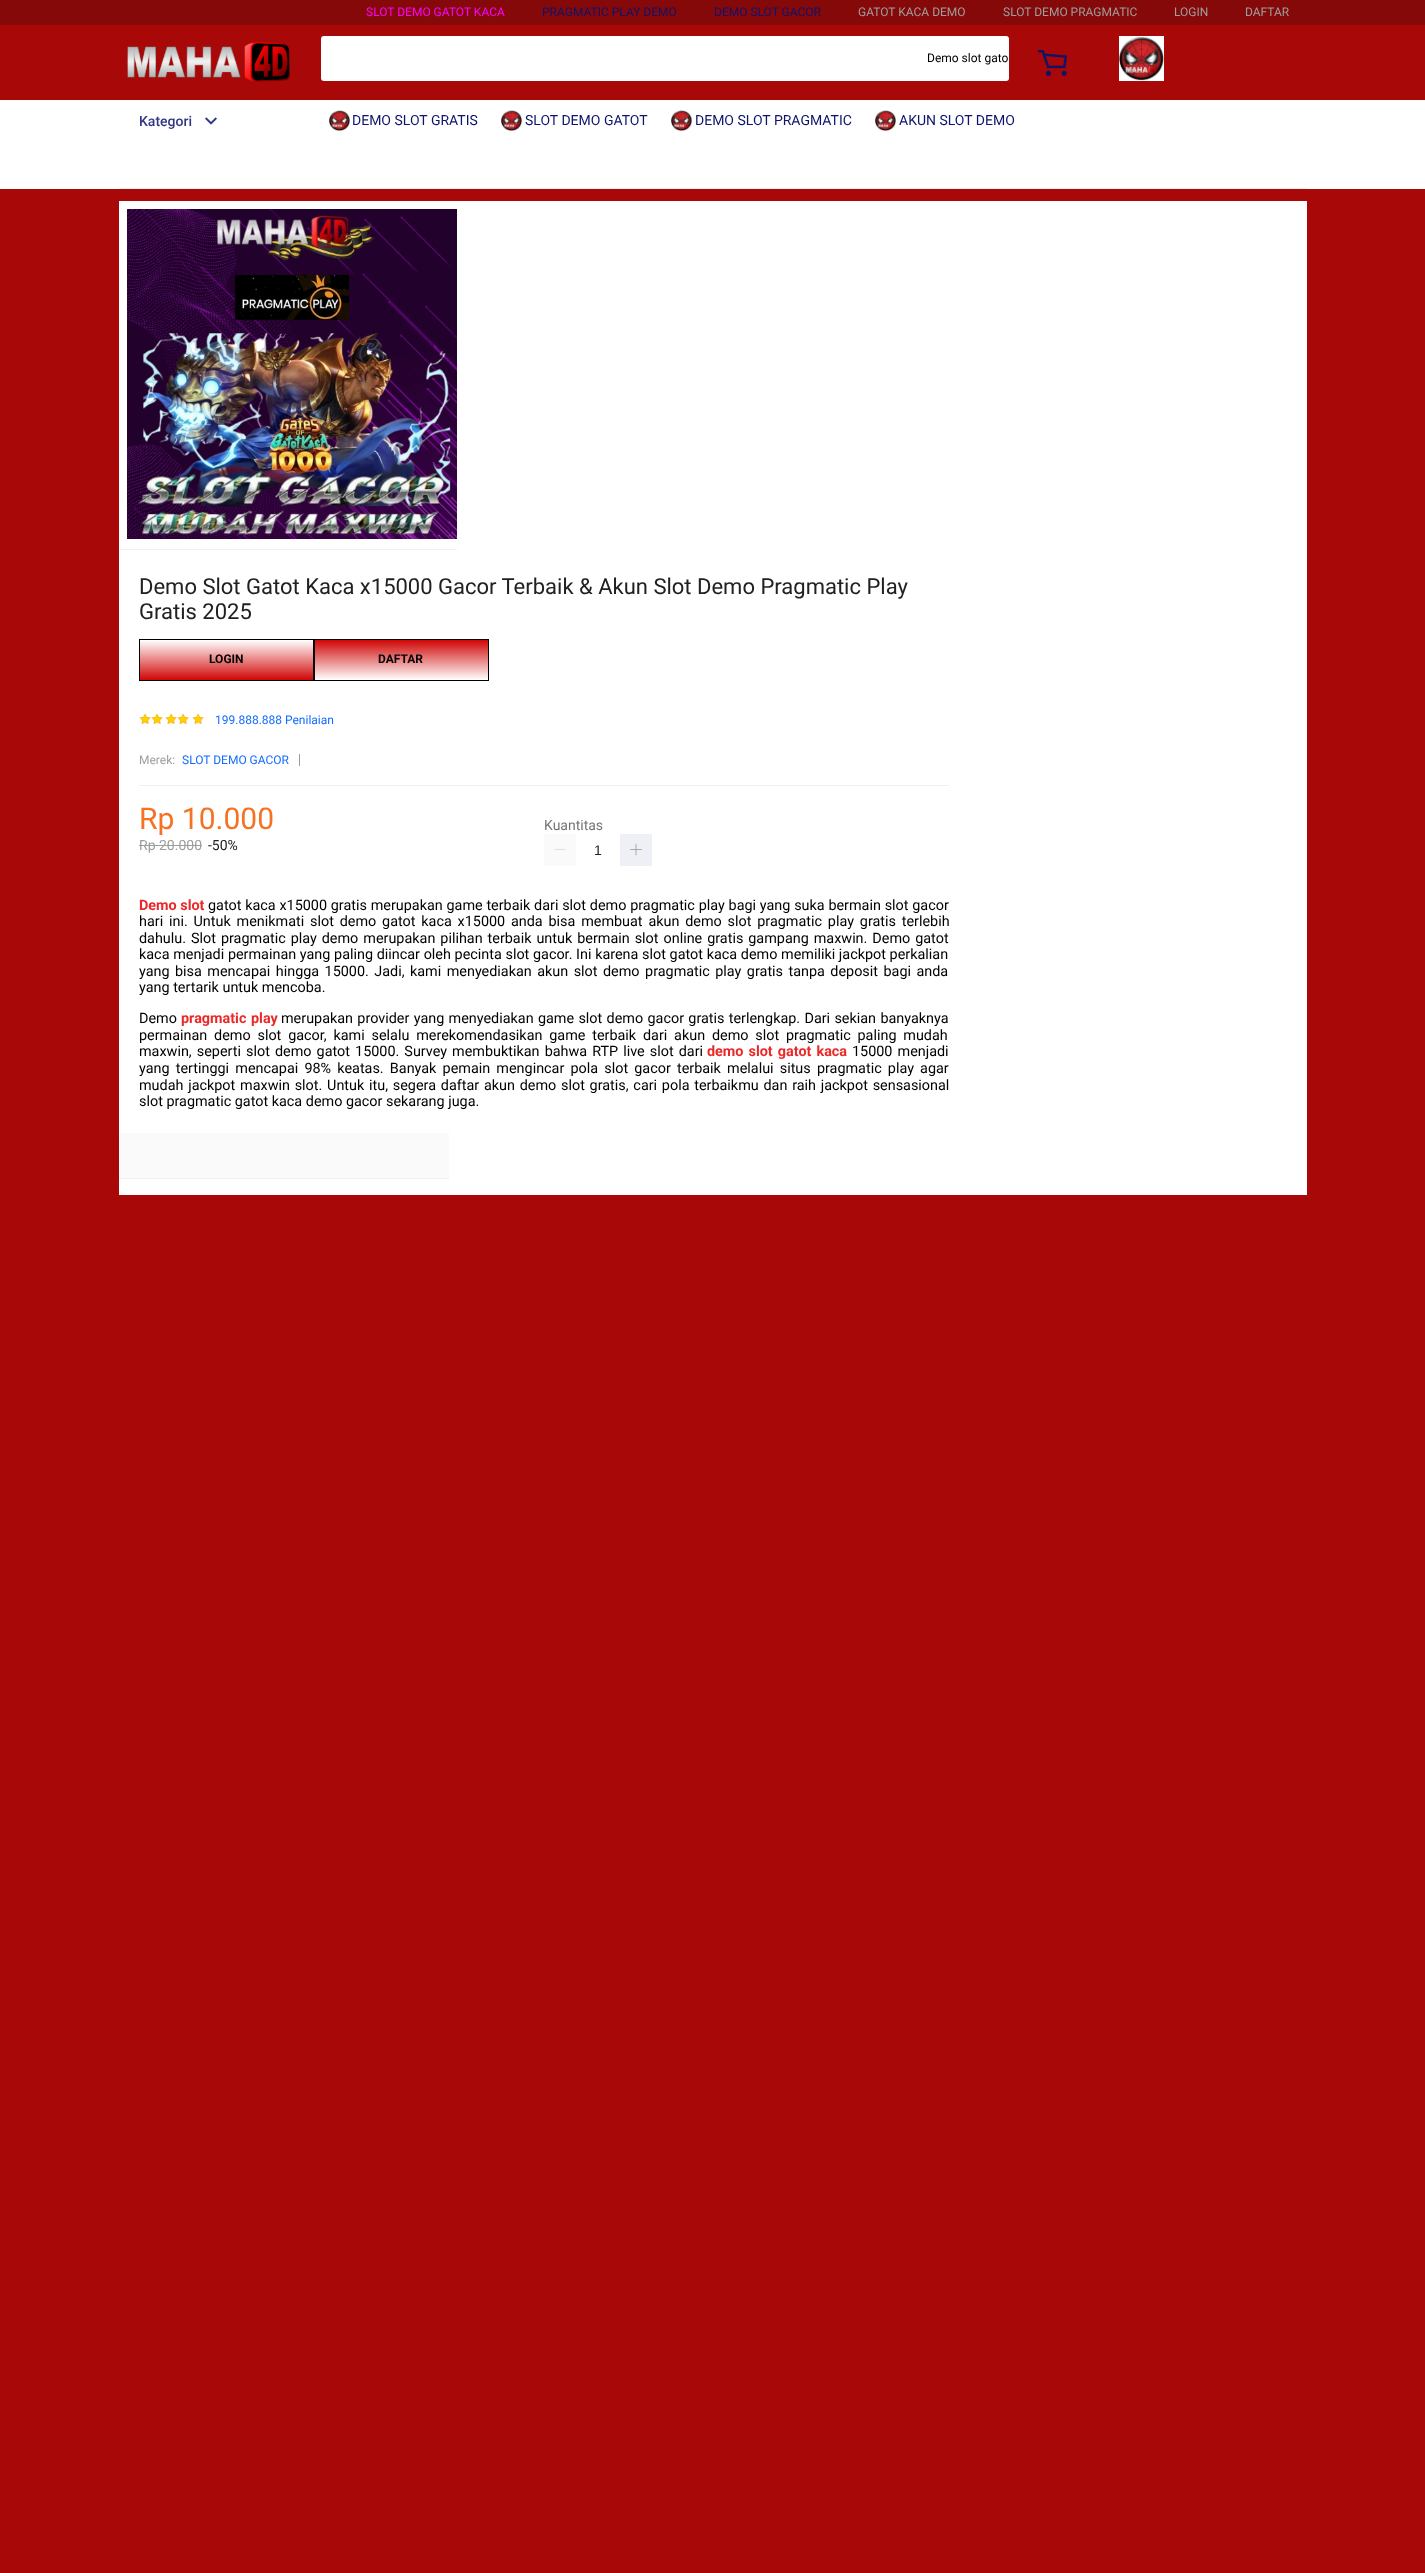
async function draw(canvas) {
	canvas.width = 1425;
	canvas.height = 2573;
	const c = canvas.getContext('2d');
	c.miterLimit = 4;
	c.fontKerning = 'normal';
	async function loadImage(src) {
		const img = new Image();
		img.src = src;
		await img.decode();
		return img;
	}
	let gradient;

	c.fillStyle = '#a80808';
	c.fillRect(0, 0, 1425, 2573);
	c.fillStyle = '#860909';
	c.fillRect(0, 0, 1425, 25);
	c.font = '12px Roboto';
	c.fillStyle = '#f0f';
	c.fillText('SLOT DEMO GATOT KACA', 366, 16);
	c.fillStyle = '#0f136d';
	c.fillText('PRAGMATIC PLAY DEMO', 542, 16);
	c.fillText('DEMO SLOT GACOR', 714, 16);
	c.fillStyle = '#9e9e9e';
	for (const [text, x, y] of [
		['GATOT KACA DEMO', 858, 16],
		['SLOT DEMO PRAGMATIC', 1003, 16],
		['LOGIN', 1174, 16],
		['DAFTAR', 1245, 16],
	]) {
		c.fillText(text, x, y);
	}
	c.drawImage(await loadImage('img1.png'), 127, 42, 163, 40);
	c.fillStyle = '#fff';
	c.beginPath();
	c.roundRect(321, 36, 688, 45, 3);
	c.fill();
	c.fillStyle = '#000';
	c.fillText('Demo slot gato', 927, 62);
	c.drawImage(await loadImage('img2.png'), 1038, 50, 29, 26);
	c.drawImage(await loadImage('img3.png'), 1119, 36, 45, 45);
	c.fillStyle = '#fff';
	c.fillRect(0, 100, 1425, 89);
	c.font = '500 14px Roboto';
	c.fillStyle = '#333683';
	c.fillText('Kategori', 139, 126);
	c.drawImage(await loadImage('img4.png'), 205, 117, 12, 8);
	c.drawImage(await loadImage('img5.png'), 329, 110, 21, 21);
	c.font = '14px Roboto';
	c.fillStyle = '#0f136d';
	c.fillText('DEMO SLOT GRATIS', 352, 125);
	c.drawImage(await loadImage('img5.png'), 501, 110, 21, 21);
	c.fillText('SLOT DEMO GATOT', 525, 125);
	c.drawImage(await loadImage('img6.png'), 671, 110, 21, 21);
	c.fillText('DEMO SLOT PRAGMATIC', 695, 125);
	c.drawImage(await loadImage('img5.png'), 875, 110, 21, 21);
	c.fillText('AKUN SLOT DEMO', 899, 125);
	for (const [x, y, w, h, color] of [
		[119, 188, 1188, 1, '#eff0f5'],
		[119, 201, 1188, 994, '#fff'],
		[119, 549, 338, 1, '#eff0f5'],
	]) {
		c.fillStyle = color;
		c.fillRect(x, y, w, h);
	}
	c.drawImage(await loadImage('img7.png'), 127, 209, 330, 330);
	c.font = '22px Roboto';
	c.fillStyle = '#212121';
	c.fillText('Demo Slot Gatot Kaca x15000 Gacor Terbaik & Akun Slot Demo Pragmatic Play', 139, 594);
	c.fillText('Gratis 2025', 139, 619);
	gradient = c.createLinearGradient(227, 640, 227, 680);
	gradient.addColorStop(0, '#fff');
	gradient.addColorStop(1, '#d10606');
	c.fillStyle = gradient;
	c.fillRect(140, 640, 173, 40);
	c.strokeStyle = '#000';
	c.strokeRect(139.5, 639.5, 174, 41);
	c.font = 'bold 12px Roboto';
	c.fillStyle = '#000';
	c.fillText('LOGIN', 209, 663);
	gradient = c.createLinearGradient(402, 640, 402, 680);
	gradient.addColorStop(0, '#d10606');
	gradient.addColorStop(1, '#fff');
	c.fillStyle = gradient;
	c.fillRect(315, 640, 173, 40);
	c.strokeRect(314.5, 639.5, 174, 41);
	c.fillStyle = '#000';
	c.fillText('DAFTAR', 378, 663);
	c.drawImage(await loadImage('img8.png'), 139, 713, 12, 12);
	c.drawImage(await loadImage('img8.png'), 151, 713, 12, 12);
	c.drawImage(await loadImage('img8.png'), 165, 713, 12, 12);
	c.drawImage(await loadImage('img8.png'), 177, 713, 12, 12);
	c.drawImage(await loadImage('img8.png'), 192, 713, 12, 12);
	c.font = '12px Roboto';
	c.fillStyle = '#136cff';
	c.fillText('199.888.888 Penilaian', 215, 724);
	c.fillStyle = '#eff0f5';
	c.fillRect(139, 785, 810, 1);
	c.fillStyle = '#9e9e9e';
	c.fillText('Merek:', 139, 764);
	c.fillStyle = '#136cff';
	c.fillText('SLOT DEMO GACOR', 182, 764);
	c.fillStyle = '#9e9e9e';
	c.fillRect(299, 754, 1, 12);
	c.font = '30px Roboto';
	c.fillStyle = '#f57224';
	c.fillText('Rp 10.000', 139, 829);
	c.font = '14px Roboto';
	c.fillStyle = '#9e9e9e';
	c.fillText('Rp 20.000', 139, 850);
	c.fillRect(139, 845, 63, 1);
	c.fillStyle = '#212121';
	c.fillText('-50%', 208, 850);
	c.fillStyle = '#757575';
	c.fillText('Kuantitas', 544, 830);
	c.fillStyle = '#fafafa';
	c.fillRect(544, 834, 32, 32);
	c.drawImage(await loadImage('img9.png'), 554, 849, 12, 1);
	c.fillStyle = '#eff0f5';
	c.fillRect(620, 834, 32, 32);
	c.drawImage(await loadImage('img10.png'), 630, 843, 12, 13);
	c.font = '14px Liberation Sans';
	c.fillStyle = '#212121';
	c.fillText('1', 594, 855);
	c.font = 'bold 14.4px Roboto';
	c.fillStyle = '#eb2727';
	c.fillText('Demo slot', 139, 910);
	c.wordSpacing = '0.2px';
	c.font = '14.4px Roboto';
	c.fillStyle = '#000';
	c.fillText('gatot kaca x15000 gratis merupakan game terbaik dari slot demo pragmatic play bagi yang suka bermain slot gacor', 208, 910);
	c.wordSpacing = '2.25px';
	c.fillText('hari ini. Untuk menikmati slot demo gatot kaca x15000 anda bisa membuat akun demo slot pragmatic play gratis terlebih', 139, 926);
	c.wordSpacing = '1.4px';
	c.fillText('dahulu. Slot pragmatic play demo merupakan pilihan terbaik untuk bermain slot online gratis gampang maxwin. Demo gatot', 139, 943);
	c.wordSpacing = '0.1px';
	c.fillText('kaca menjadi permainan yang paling diincar oleh pecinta slot gacor. Ini karena slot gatot kaca demo memiliki jackpot perkalian', 139, 959);
	c.wordSpacing = '1.9px';
	c.fillText('yang bisa mencapai hingga 15000. Jadi, kami menyediakan akun slot demo pragmatic play gratis tanpa deposit bagi anda', 139, 976);
	c.wordSpacing = '0px';
	c.fillText('yang tertarik untuk mencoba.', 139, 992);
	c.fillText('Demo', 139, 1023);
	c.wordSpacing = '1px';
	c.font = 'bold 14.4px Roboto';
	c.fillStyle = '#eb2727';
	c.fillText('pragmatic play', 181, 1023);
	c.wordSpacing = '0.75px';
	c.font = '14.4px Roboto';
	c.fillStyle = '#000';
	c.fillText('merupakan provider yang menyediakan game slot demo gacor gratis terlengkap. Dari sekian banyaknya', 281, 1023);
	c.wordSpacing = '3.25px';
	c.fillText('permainan demo slot gacor, kami selalu merekomendasikan game terbaik dari akun demo slot pragmatic paling mudah', 139, 1040);
	c.wordSpacing = '1.5px';
	c.fillText('maxwin, seperti slot demo gatot 15000. Survey membuktikan bahwa RTP live slot dari', 139, 1056);
	c.font = 'bold 14.4px Roboto';
	c.fillStyle = '#eb2727';
	c.fillText('demo slot gatot kaca', 707, 1056);
	c.font = '14.4px Roboto';
	c.fillStyle = '#000';
	c.fillText('15000 menjadi', 852, 1056);
	c.wordSpacing = '2.6px';
	c.fillText('yang tertinggi mencapai 98% keatas. Banyak pemain mengincar pola slot gacor terbaik melalui situs pragmatic play agar', 139, 1073);
	c.wordSpacing = '1.2px';
	c.fillText('mudah jackpot maxwin slot. Untuk itu, segera daftar akun demo slot gratis, cari pola terbaikmu dan raih jackpot sensasional', 139, 1090);
	c.wordSpacing = '0px';
	c.fillText('slot pragmatic gatot kaca demo gacor sekarang juga.', 139, 1106);
	c.fillStyle = '#fafafa';
	c.fillRect(119, 1133, 330, 45);
	c.fillStyle = '#eff0f5';
	c.fillRect(119, 1178, 330, 1);
}

draw(document.querySelector('canvas'));
